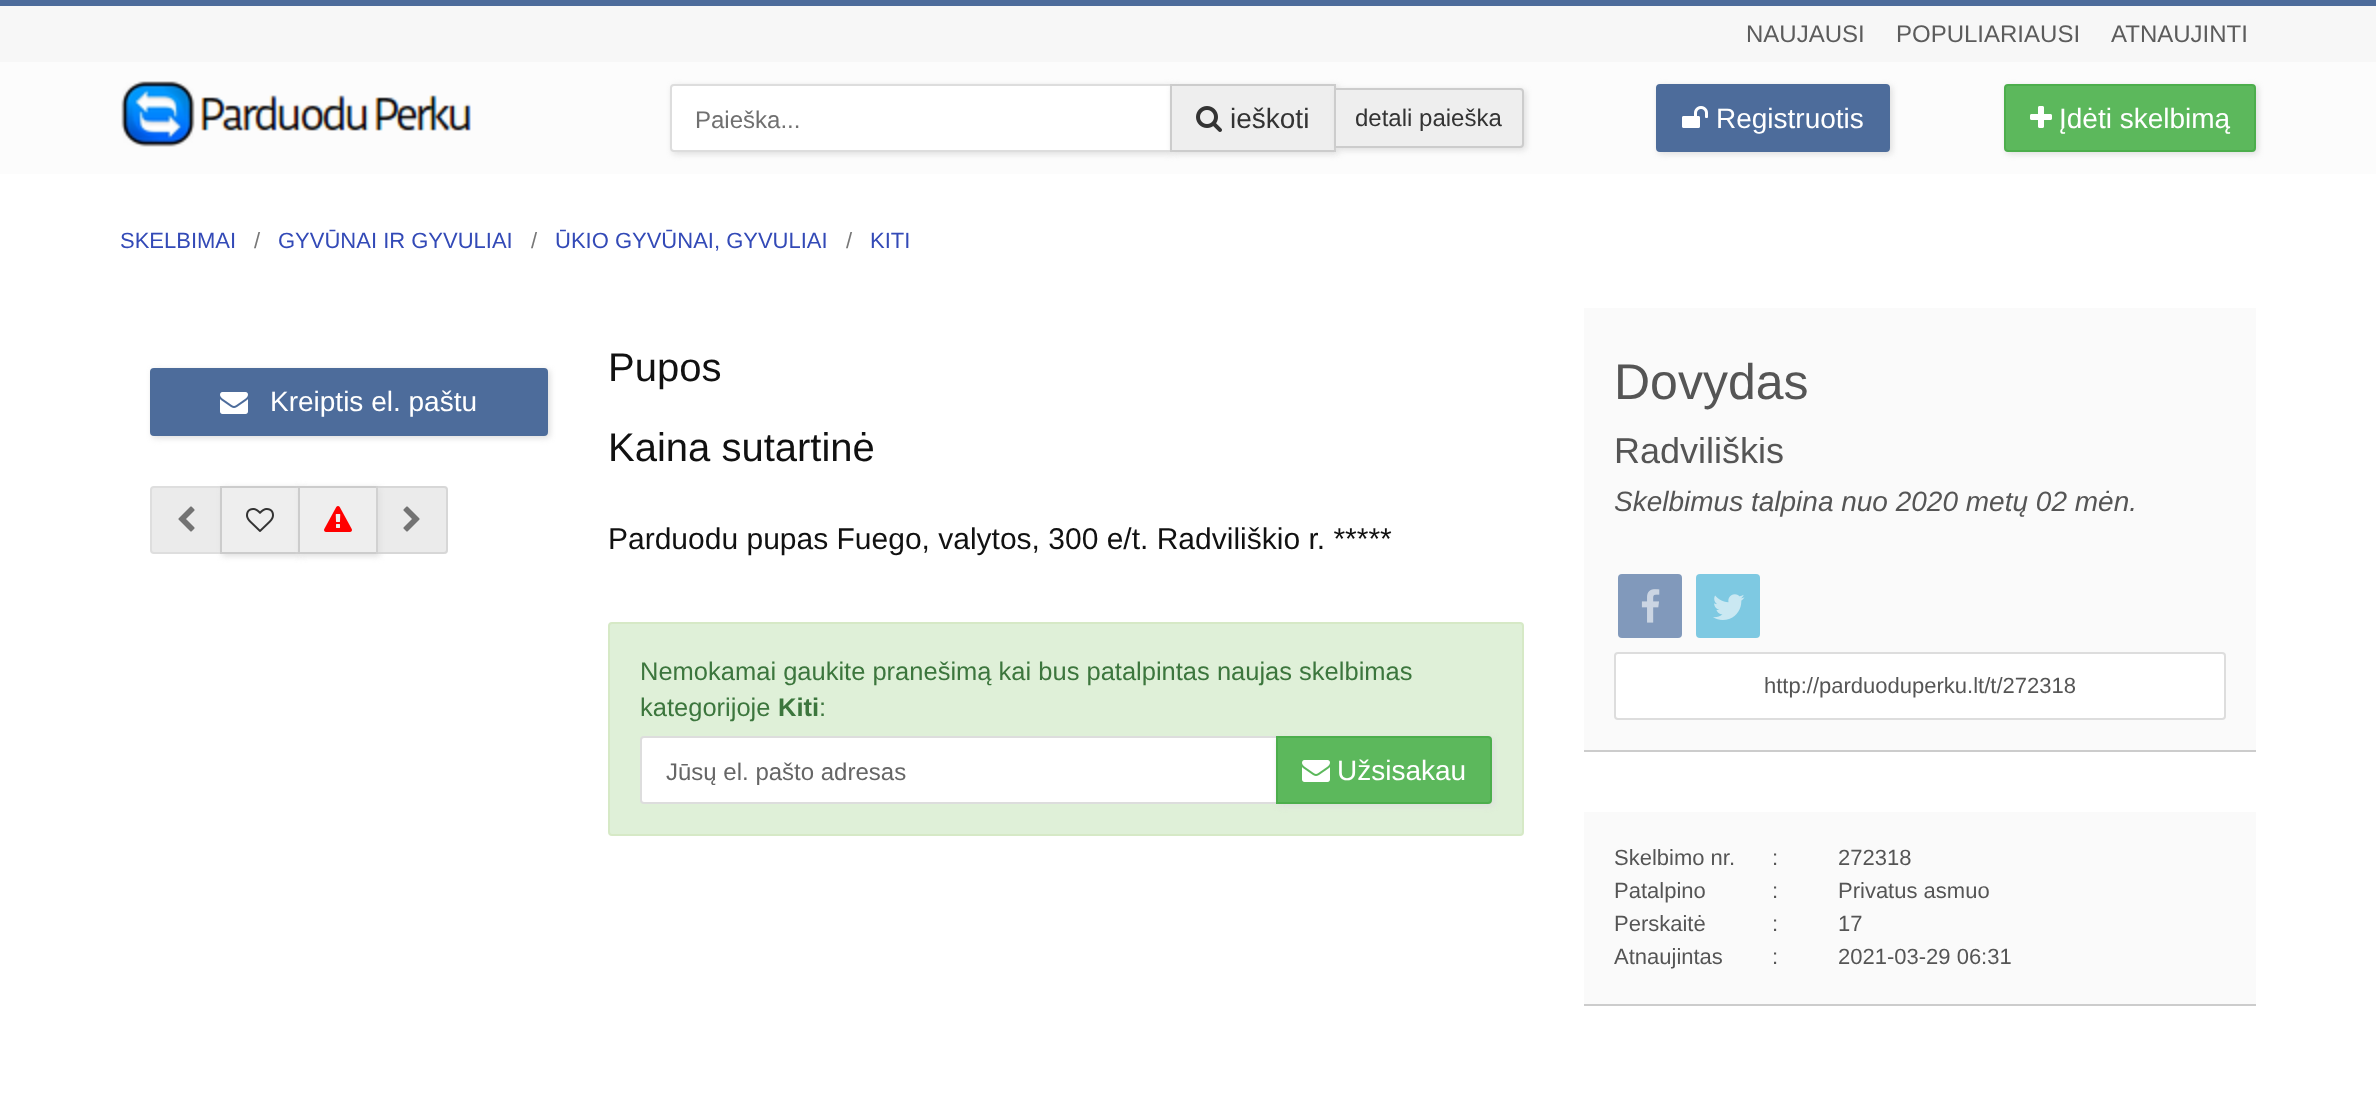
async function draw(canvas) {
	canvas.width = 2376;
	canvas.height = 1119;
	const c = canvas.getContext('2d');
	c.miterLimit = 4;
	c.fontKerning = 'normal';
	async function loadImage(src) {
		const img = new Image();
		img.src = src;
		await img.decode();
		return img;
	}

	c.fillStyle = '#f7f7f7';
	c.fillRect(0, 0, 2376, 1119);
	c.fillStyle = '#4d6c9b';
	c.fillRect(0, 0, 2376, 6);
	c.font = '24px Liberation Sans';
	c.fillStyle = '#5c5c5c';
	for (const [text, x, y] of [
		['NAUJAUSI', 1746, 42],
		['POPULIARIAUSI', 1896, 42],
		['ATNAUJINTI', 2111, 42],
	]) {
		c.fillText(text, x, y);
	}
	c.fillStyle = '#fcfcfc';
	c.fillRect(0, 62, 2376, 112);
	c.drawImage(await loadImage('img1.png'), 121, 81, 350, 66);
	c.fillStyle = '#ddd';
	c.filter = 'blur(3px)';
	c.beginPath();
	c.roundRect(672, 86, 502, 68, 4);
	c.fill();
	c.filter = 'none';
	c.fillStyle = '#fff';
	c.beginPath();
	c.roundRect(671, 85, 500, 66, [3, 0, 0, 3]);
	c.fill();
	c.strokeStyle = '#ddd';
	c.lineWidth = 2;
	c.stroke();
	c.fillStyle = '#707070';
	c.fillText('Paieška...', 695, 128);
	c.fillStyle = '#ddd';
	c.filter = 'blur(3px)';
	c.beginPath();
	c.rect(1172, 86, 166, 68);
	c.fill();
	c.filter = 'none';
	c.fillStyle = '#eee';
	c.beginPath();
	c.rect(1171, 85, 164, 66);
	c.fill();
	c.strokeStyle = '#ccc';
	c.stroke();
	c.drawImage(await loadImage('img2.png'), 1196, 106, 26, 26);
	c.font = '28px Liberation Sans';
	c.fillStyle = '#333';
	c.fillText('ieškoti', 1230, 128);
	c.fillStyle = '#ddd';
	c.filter = 'blur(3px)';
	c.beginPath();
	c.roundRect(1336, 90, 190, 60, 4);
	c.fill();
	c.filter = 'none';
	c.fillStyle = '#eee';
	c.beginPath();
	c.roundRect(1335, 89, 188, 58, [0, 3, 3, 0]);
	c.fill();
	c.stroke();
	c.font = '24px Liberation Sans';
	c.fillStyle = '#333';
	c.fillText('detali paieška', 1355, 126);
	c.fillStyle = '#ddd';
	c.filter = 'blur(3px)';
	c.beginPath();
	c.roundRect(1658, 86, 234, 68, 4);
	c.fill();
	c.filter = 'none';
	c.fillStyle = '#4d6c9b';
	c.beginPath();
	c.roundRect(1657, 85, 232, 66, 3);
	c.fill();
	c.strokeStyle = '#4d6c9a';
	c.stroke();
	c.drawImage(await loadImage('img3.png'), 1682, 106, 26, 22);
	c.font = '28px Liberation Sans';
	c.fillStyle = '#fff';
	c.fillText('Registruotis', 1716, 128);
	c.fillStyle = '#ddd';
	c.filter = 'blur(3px)';
	c.beginPath();
	c.roundRect(2006, 86, 252, 68, 4);
	c.fill();
	c.filter = 'none';
	c.fillStyle = '#5cb85c';
	c.beginPath();
	c.roundRect(2005, 85, 250, 66, 3);
	c.fill();
	c.strokeStyle = '#4cae4c';
	c.stroke();
	c.drawImage(await loadImage('img4.png'), 2030, 106, 22, 22);
	c.fillStyle = '#fff';
	c.fillText('Įdėti skelbimą', 2059, 128);
	c.fillRect(0, 174, 2376, 945);
	c.font = '22px Liberation Sans';
	c.fillStyle = '#334ab7';
	c.fillText('SKELBIMAI', 120, 248);
	c.fillStyle = '#777';
	c.fillText('/', 254, 248);
	c.fillStyle = '#334ab7';
	c.fillText('GYVŪNAI IR GYVULIAI', 278, 248);
	c.fillStyle = '#777';
	c.fillText('/', 531, 248);
	c.fillStyle = '#334ab7';
	c.fillText('ŪKIO GYVŪNAI, GYVULIAI', 555, 248);
	c.fillStyle = '#777';
	c.fillText('/', 846, 248);
	c.fillStyle = '#334ab7';
	c.fillText('KITI', 870, 248);
	c.fillStyle = '#ddd';
	c.filter = 'blur(3px)';
	c.beginPath();
	c.roundRect(152, 370, 398, 68, 4);
	c.fill();
	c.filter = 'none';
	c.fillStyle = '#4d6c9b';
	c.beginPath();
	c.roundRect(151, 369, 396, 66, 3);
	c.fill();
	c.strokeStyle = '#4d6c9a';
	c.stroke();
	c.drawImage(await loadImage('img5.png'), 220, 392, 28, 22);
	c.font = '28px Liberation Sans';
	c.fillStyle = '#fff';
	c.fillText('Kreiptis el. paštu', 270, 411);
	c.fillStyle = '#ebebeb';
	c.beginPath();
	c.roundRect(151, 487, 70, 66, [3, 0, 0, 3]);
	c.fill();
	c.strokeStyle = '#dedede';
	c.stroke();
	c.drawImage(await loadImage('img6.png'), 178, 506, 17, 26);
	c.fillStyle = '#ddd';
	c.filter = 'blur(3px)';
	c.beginPath();
	c.rect(222, 488, 80, 68);
	c.fill();
	c.filter = 'none';
	c.fillStyle = '#eee';
	c.beginPath();
	c.rect(221, 487, 78, 66);
	c.fill();
	c.strokeStyle = '#ccc';
	c.stroke();
	c.drawImage(await loadImage('img7.png'), 246, 508, 28, 24);
	c.fillStyle = '#ddd';
	c.filter = 'blur(3px)';
	c.beginPath();
	c.rect(300, 488, 80, 68);
	c.fill();
	c.filter = 'none';
	c.fillStyle = '#eee';
	c.beginPath();
	c.rect(299, 487, 78, 66);
	c.fill();
	c.stroke();
	c.drawImage(await loadImage('img8.png'), 324, 506, 28, 26);
	c.fillStyle = '#e0e0e0a6';
	c.beginPath();
	c.roundRect(376, 486, 72, 68, [0, 4, 4, 0]);
	c.fill();
	c.beginPath();
	c.roundRect(377, 487, 70, 66, [0, 3, 3, 0]);
	c.strokeStyle = '#cccccca6';
	c.stroke();
	c.drawImage(await loadImage('img9.png'), 403, 506, 17, 26);
	c.font = '40px Liberation Sans';
	c.fillStyle = '#111';
	c.fillText('Pupos', 608, 381);
	c.fillText('Kaina sutartinė', 608, 461);
	c.font = '30px Liberation Sans';
	c.fillText('Parduodu pupas Fuego, valytos, 300 e/t. Radviliškio r. *****', 608, 549);
	c.fillStyle = '#dff0d8';
	c.beginPath();
	c.roundRect(609, 623, 914, 212, 3);
	c.fill();
	c.strokeStyle = '#d6e9c6';
	c.stroke();
	c.font = '25.5px Liberation Sans';
	c.fillStyle = '#3c763d';
	c.fillText('Nemokamai gaukite pranešimą kai bus patalpintas naujas skelbimas', 640, 680);
	c.fillText('kategorijoje', 640, 716);
	c.font = 'bold 25.5px Liberation Sans';
	c.fillText('Kiti', 778, 716);
	c.font = '25.5px Liberation Sans';
	c.fillText(':', 819, 716);
	c.fillStyle = '#fff';
	c.beginPath();
	c.roundRect(641, 737, 636, 66, [3, 0, 0, 3]);
	c.fill();
	c.strokeStyle = '#ddd';
	c.stroke();
	c.font = '24px Liberation Sans';
	c.fillStyle = '#666';
	c.fillText('Jūsų el. pašto adresas', 666, 780);
	c.fillStyle = '#ddd';
	c.filter = 'blur(3px)';
	c.beginPath();
	c.roundRect(1278, 738, 216, 68, 4);
	c.fill();
	c.filter = 'none';
	c.fillStyle = '#5cb85c';
	c.beginPath();
	c.roundRect(1277, 737, 214, 66, [0, 3, 3, 0]);
	c.fill();
	c.strokeStyle = '#4cae4c';
	c.stroke();
	c.drawImage(await loadImage('img10.png'), 1302, 760, 28, 22);
	c.font = '28px Liberation Sans';
	c.fillStyle = '#fff';
	c.fillText('Užsisakau', 1337, 780);
	c.fillStyle = '#fafafa';
	c.fillRect(1584, 308, 672, 442);
	c.fillStyle = '#ccc';
	c.fillRect(1584, 750, 672, 2);
	c.font = '50px Liberation Sans';
	c.fillStyle = '#555';
	c.fillText('Dovydas', 1614, 399);
	c.font = '36px Liberation Sans';
	c.fillText('Radviliškis', 1614, 463);
	c.font = 'italic 28px Liberation Sans';
	c.fillText('Skelbimus talpina nuo 2020 metų 02 mėn.', 1614, 511);
	c.fillStyle = '#8199bb';
	c.beginPath();
	c.roundRect(1618, 574, 64, 64, 4);
	c.fill();
	c.drawImage(await loadImage('img11.png'), 1641, 589, 19, 34);
	c.fillStyle = '#7ec9e2';
	c.beginPath();
	c.roundRect(1696, 574, 64, 64, 4);
	c.fill();
	c.drawImage(await loadImage('img12.png'), 1713, 594, 32, 26);
	c.fillStyle = '#fff';
	c.beginPath();
	c.roundRect(1615, 653, 610, 66, 3);
	c.fill();
	c.strokeStyle = '#ddd';
	c.stroke();
	c.font = '22px Liberation Sans';
	c.fillStyle = '#555';
	c.fillText('http://parduoduperku.lt/t/272318', 1764, 693);
	c.fillStyle = '#fafafa';
	c.fillRect(1584, 812, 672, 192);
	c.fillStyle = '#ccc';
	c.fillRect(1584, 1004, 672, 2);
	c.fillStyle = '#555';
	for (const [text, x, y] of [
		['Skelbimo nr.', 1614, 865],
		[':', 1772, 865],
		['272318', 1838, 865],
		['Patalpino', 1614, 898],
		[':', 1772, 898],
		['Privatus asmuo', 1838, 898],
		['Perskaitė', 1614, 931],
		[':', 1772, 931],
		['17', 1838, 931],
		['Atnaujintas', 1614, 964],
		[':', 1772, 964],
		['2021-03-29 06:31', 1838, 964],
	]) {
		c.fillText(text, x, y);
	}
}

draw(document.querySelector('canvas'));
